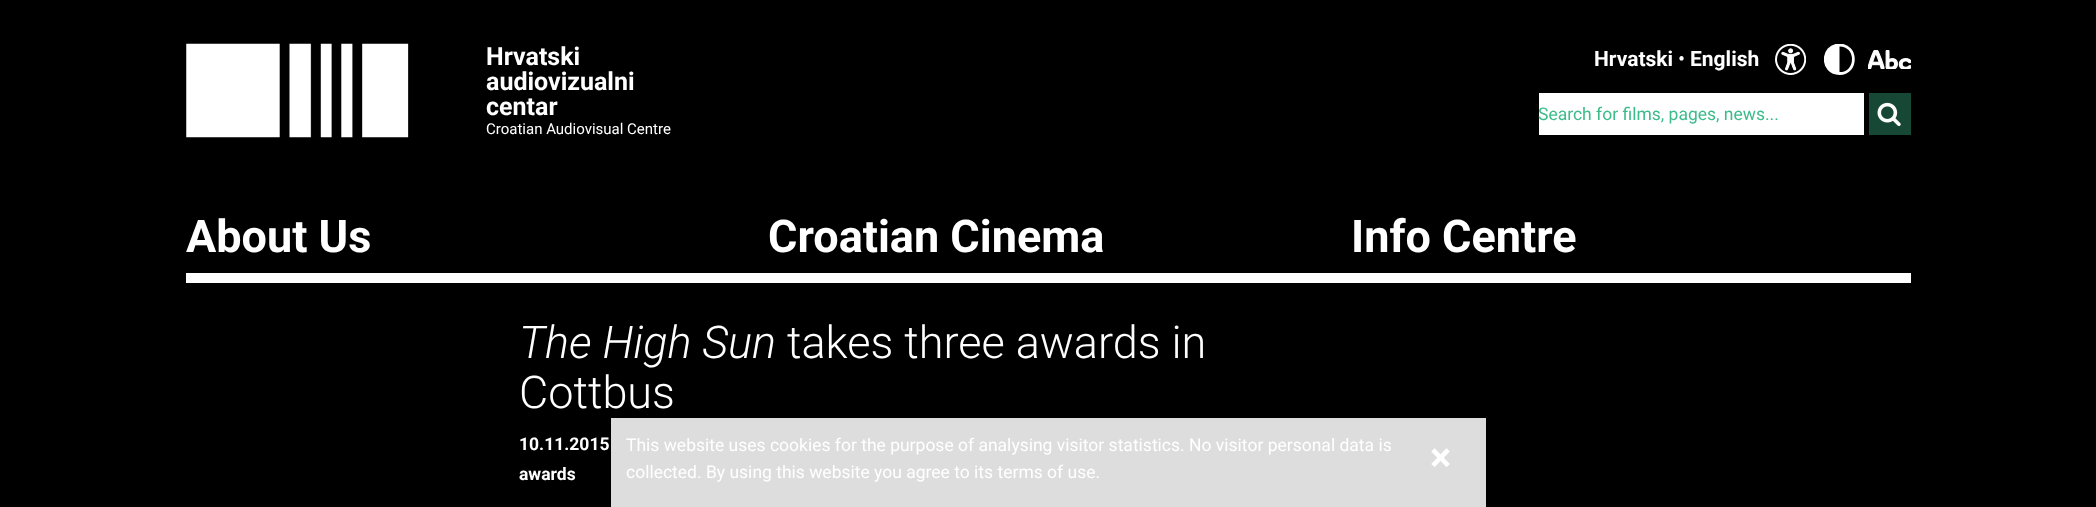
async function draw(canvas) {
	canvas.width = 2096;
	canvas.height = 507;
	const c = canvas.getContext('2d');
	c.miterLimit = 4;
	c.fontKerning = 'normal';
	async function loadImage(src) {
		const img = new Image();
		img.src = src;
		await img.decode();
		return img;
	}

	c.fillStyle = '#000';
	c.fillRect(0, 0, 2096, 507);
	c.drawImage(await loadImage('img1.png'), 186, 43, 223, 95);
	c.font = 'bold 25px Roboto';
	c.fillStyle = '#fff';
	for (const [text, x, y] of [
		['Hrvatski', 486, 65],
		['audiovizualni', 486, 90],
		['centar', 486, 115],
	]) {
		c.fillText(text, x, y);
	}
	c.font = '15px Roboto';
	c.fillText('Croatian Audiovisual Centre', 486, 134);
	c.font = 'bold 21px Roboto';
	c.fillText('Hrvatski', 1594, 66);
	c.font = '21px Roboto';
	c.fillText('•', 1678, 66);
	c.font = 'bold 21px Roboto';
	c.fillText('English', 1690, 66);
	c.drawImage(await loadImage('img2.png'), 1775, 44, 31, 31);
	c.save();
	c.beginPath();
	c.rect(1824, 44, 31, 31);
	c.clip();
	c.beginPath();
	c.moveTo(1839.5, 45);
	c.bezierCurveTo(1858, 45, 1858, 73.5, 1839.5, 73.5);
	c.bezierCurveTo(1820.5, 73.5, 1820.5, 45, 1839.5, 45);
	c.closePath();
	c.strokeStyle = '#fff';
	c.lineWidth = 2.8;
	c.lineCap = 'round';
	c.lineJoin = 'round';
	c.stroke();
	c.restore();
	c.beginPath();
	c.moveTo(1839.5, 73.5);
	c.bezierCurveTo(1820.5, 73.5, 1820.5, 45, 1839.5, 45);
	c.closePath();
	c.fill('evenodd');
	c.drawImage(await loadImage('img3.png'), 1868, 50, 43, 19);
	c.fillRect(1539, 93, 325, 42);
	c.font = '17.5px Roboto';
	c.fillStyle = '#3cbc8a';
	c.fillText('Search for films, pages, news...', 1538, 120);
	c.fillStyle = '#174835';
	c.fillRect(1869, 93, 42, 42);
	c.drawImage(await loadImage('img4.png'), 1877, 102, 24, 24);
	c.fillStyle = '#fff';
	c.fillRect(186, 273, 1725, 10);
	c.font = 'bold 45px Roboto';
	for (const [text, x, y] of [
		['About Us', 186, 252],
		['Croatian Cinema', 768, 252],
		['Info Centre', 1351, 252],
	]) {
		c.fillText(text, x, y);
	}
	c.font = 'italic 300 45px Roboto';
	c.fillText('The High Sun', 519, 358);
	c.font = '300 45px Roboto';
	c.fillText('takes three awards in', 787, 358);
	c.fillText('Cottbus', 519, 408);
	c.font = 'bold 17.5px Roboto';
	c.fillText('10.11.2015', 519, 450);
	c.fillText('awards', 519, 480);
	c.fillStyle = '#ddd';
	c.fillRect(611, 418, 875, 89);
	c.font = '17.5px Roboto';
	c.fillStyle = '#fff';
	c.fillText('This website uses cookies for the purpose of analysing visitor statistics. No visitor personal data is', 626, 451);
	c.font = 'bold 40px Roboto';
	c.fillText('×', 1430, 471);
	c.font = '17.5px Roboto';
	c.fillText('collected. By using this website you agree to its terms of use.', 626, 478);
}

draw(document.querySelector('canvas'));
